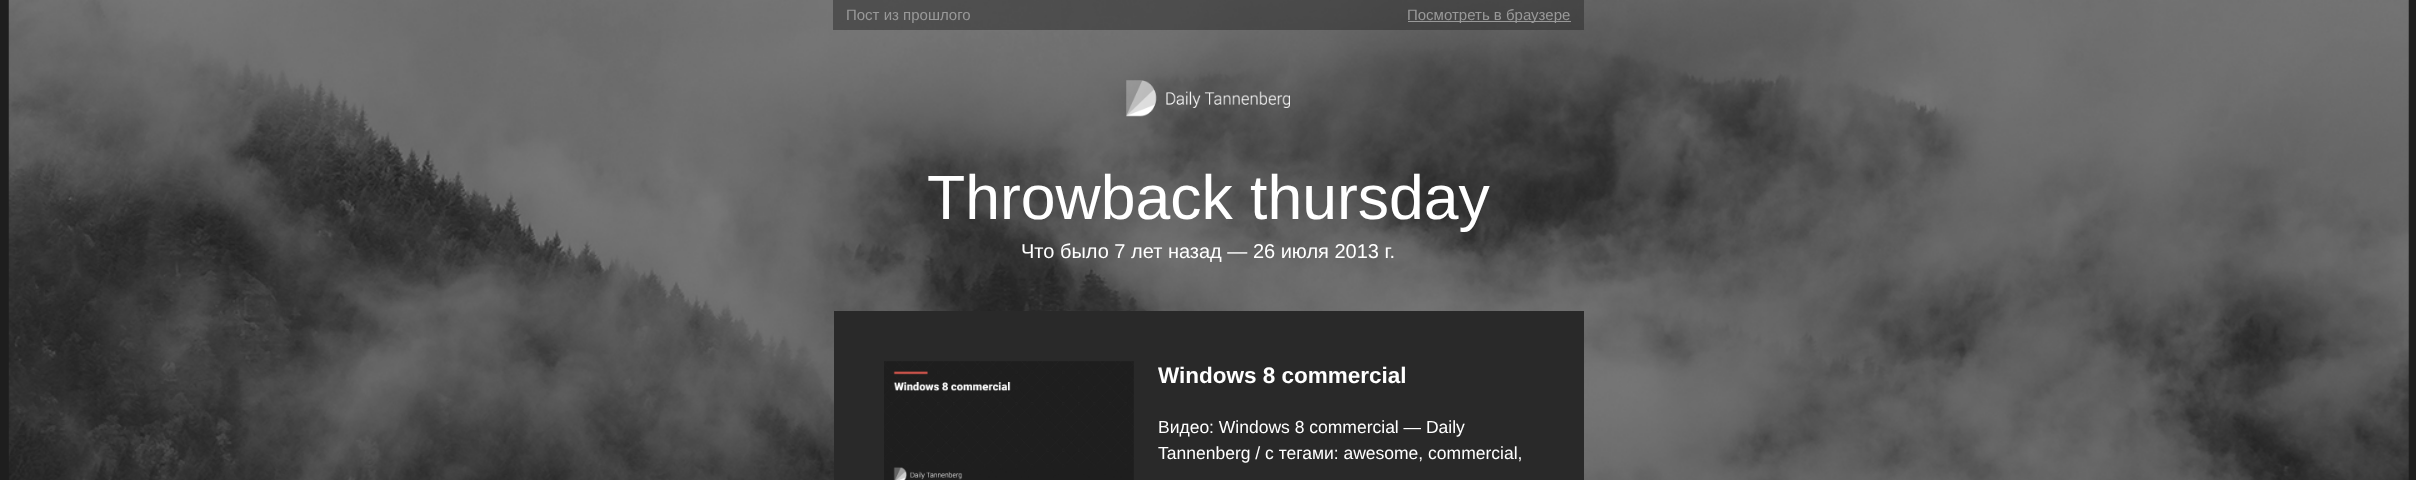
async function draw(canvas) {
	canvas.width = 2416;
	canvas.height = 480;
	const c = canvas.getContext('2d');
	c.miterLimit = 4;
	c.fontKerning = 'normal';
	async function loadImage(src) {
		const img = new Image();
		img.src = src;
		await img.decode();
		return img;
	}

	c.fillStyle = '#1e1e1e';
	c.fillRect(0, 0, 2416, 480);
	c.drawImage(await loadImage('img1.png'), 8, 0, 2401, 480);
	c.fillStyle = '#2a2a2a80';
	c.fillRect(833, 0, 751, 30);
	c.font = '15px Liberation Sans';
	c.fillStyle = '#999';
	c.fillText('Пост из прошлого', 846, 20);
	c.fillRect(1408, 21, 163, 1);
	c.fillText('Посмотреть в браузере', 1407, 20);
	c.drawImage(await loadImage('img2.png'), 1126, 80, 164, 37);
	c.font = '62.5px Liberation Sans';
	c.fillStyle = '#fff';
	c.fillText('Throwback thursday', 927, 219);
	c.font = '20px Liberation Sans';
	c.fillText('Что было 7 лет назад — 26 июля 2013 г.', 1021, 258);
	c.fillStyle = '#292929';
	c.fillRect(834, 311, 750, 169);
	c.drawImage(await loadImage('img3.png'), 884, 361, 250, 119);
	c.font = 'bold 22.5px Liberation Sans';
	c.fillStyle = '#fff';
	c.fillText('Windows 8 commercial', 1158, 383);
	c.font = '17.5px Liberation Sans';
	c.fillText('Видео: Windows 8 commercial — Daily', 1158, 433);
	c.fillText('Tannenberg / с тегами: awesome, commercial,', 1158, 459);
}

draw(document.querySelector('canvas'));
